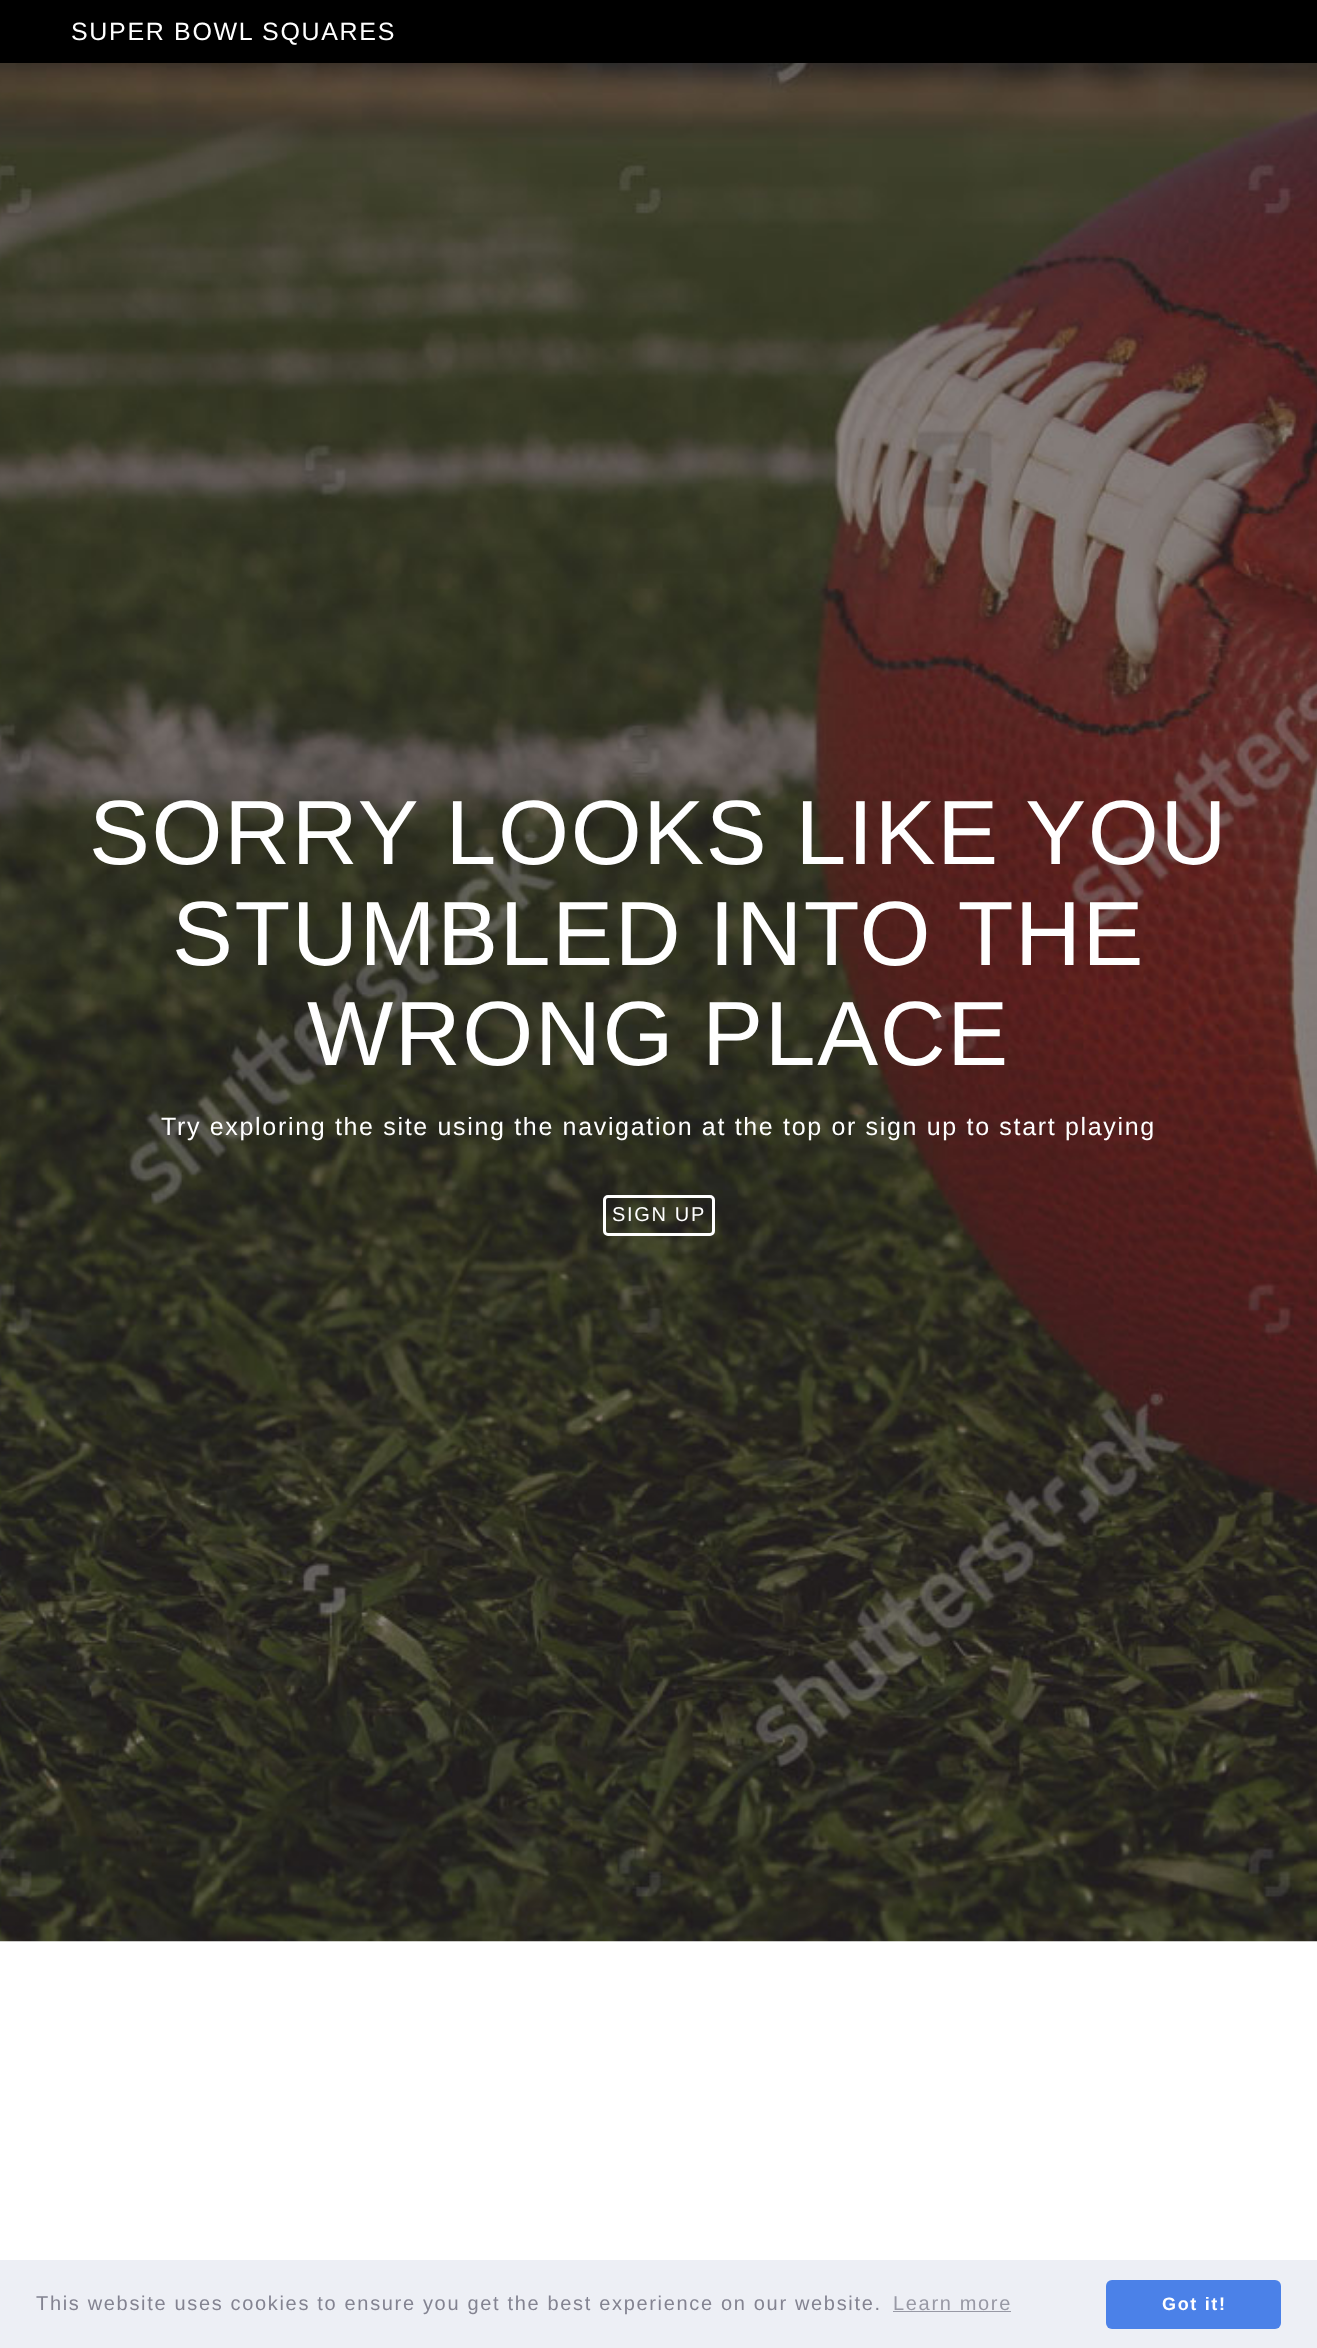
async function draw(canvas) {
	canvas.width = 1317;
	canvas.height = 2348;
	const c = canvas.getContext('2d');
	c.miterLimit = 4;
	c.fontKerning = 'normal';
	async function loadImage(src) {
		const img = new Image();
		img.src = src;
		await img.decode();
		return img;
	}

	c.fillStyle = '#fff';
	c.fillRect(0, 0, 1317, 2348);
	c.fillStyle = '#000';
	c.fillRect(0, 0, 1317, 63);
	c.letterSpacing = '1.67px';
	c.font = '25px Liberation Sans';
	c.fillStyle = '#fff';
	c.fillText('SUPER BOWL SQUARES', 71, 40);
	c.drawImage(await loadImage('img1.png'), 0, 63, 1317, 1879);
	c.font = '91.25px Liberation Sans';
	for (const [text, x, y] of [
		['SORRY LOOKS LIKE YOU', 89, 864],
		['STUMBLED INTO THE', 172, 965],
		['WRONG PLACE', 307, 1065],
	]) {
		c.fillText(text, x, y);
	}
	c.font = '25px Liberation Sans';
	c.fillText('Try exploring the site using the navigation at the top or sign up to start playing', 161, 1135);
	c.beginPath();
	c.roundRect(604.5, 1196.5, 109, 38, 3.5);
	c.strokeStyle = '#fff';
	c.lineWidth = 3;
	c.stroke();
	c.font = '20px Liberation Sans';
	c.fillText('SIGN UP', 612, 1221);
	c.fillStyle = '#edeff5';
	c.fillRect(0, 2260, 1317, 88);
	c.fillStyle = '#838391';
	c.fillText('This website uses cookies to ensure you get the best experience on our website.', 36, 2310);
	c.fillStyle = '#9899a5';
	c.fillText('Learn more', 893, 2310);
	c.fillRect(893, 2311, 118, 1);
	c.fillStyle = '#4b81e8';
	c.beginPath();
	c.roundRect(1106, 2280, 175, 49, 6);
	c.fill();
	c.font = 'bold 18px Liberation Sans';
	c.fillStyle = '#fff';
	c.fillText('Got it!', 1162, 2310);
}

draw(document.querySelector('canvas'));
